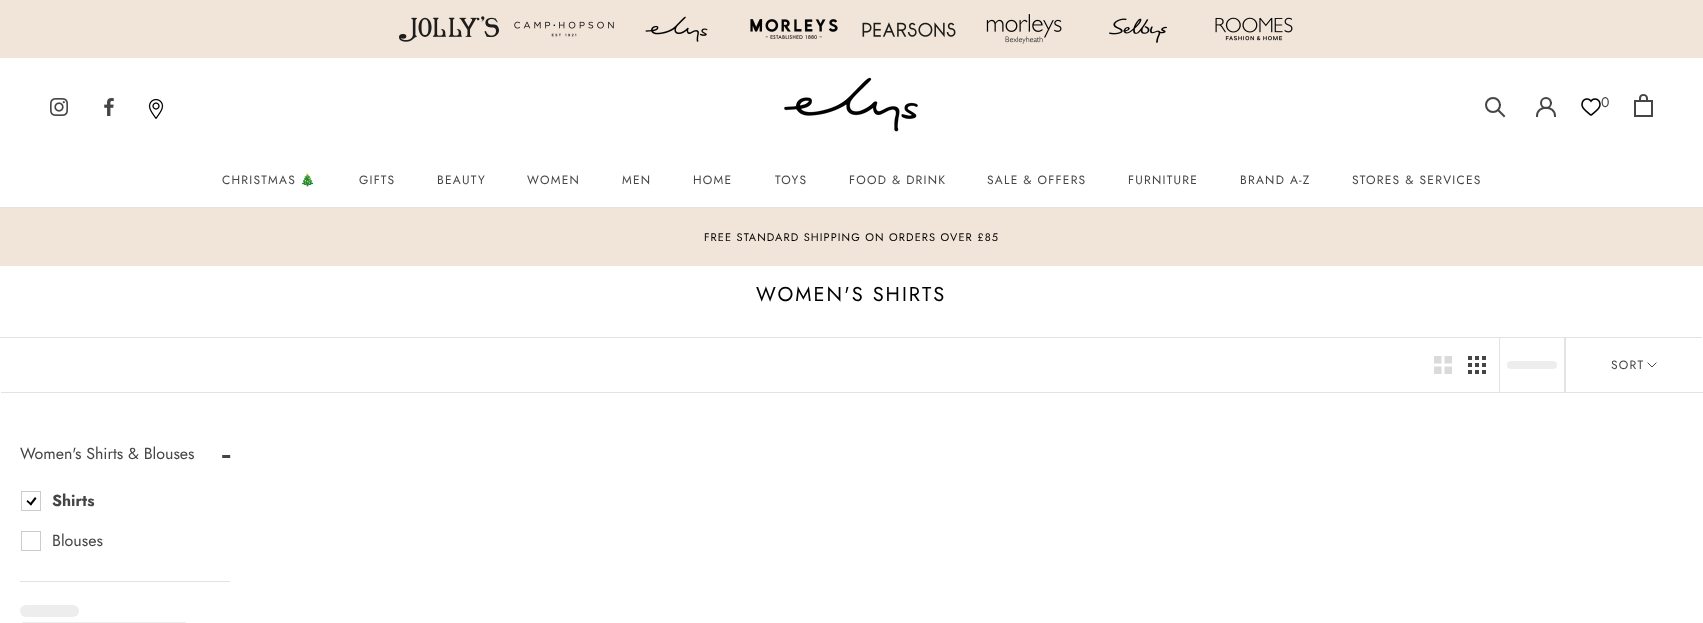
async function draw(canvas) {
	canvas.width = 1703;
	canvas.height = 623;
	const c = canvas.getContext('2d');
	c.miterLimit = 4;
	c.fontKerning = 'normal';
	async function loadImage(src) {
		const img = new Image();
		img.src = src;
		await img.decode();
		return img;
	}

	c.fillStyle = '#fff';
	c.fillRect(0, 0, 1703, 623);
	c.fillStyle = '#f1e4d8';
	c.fillRect(0, 0, 1703, 58);
	c.drawImage(await loadImage('img1.png'), 399, 16, 100, 26);
	c.drawImage(await loadImage('img2.png'), 514, 21, 100, 16);
	c.drawImage(await loadImage('img3.png'), 645, 16, 63, 26);
	c.drawImage(await loadImage('img4.png'), 750, 19, 88, 20);
	c.drawImage(await loadImage('img5.png'), 862, 22, 94, 16);
	c.drawImage(await loadImage('img6.png'), 986, 14, 76, 30);
	c.drawImage(await loadImage('img7.png'), 1109, 18, 58, 25);
	c.drawImage(await loadImage('img8.png'), 1215, 17, 78, 24);
	c.fillStyle = '#e3e3e3';
	c.fillRect(0, 207, 1703, 1);
	c.drawImage(await loadImage('img9.png'), 784, 77, 134, 55);
	c.beginPath();
	c.moveTo(1504, 116);
	c.lineTo(1498.5, 110.5);
	c.strokeStyle = '#454545';
	c.lineWidth = 2;
	c.lineCap = 'square';
	c.stroke();
	c.beginPath();
	c.arc(1493, 105, 7, 0, 2 * Math.PI);
	c.stroke();
	c.beginPath();
	c.moveTo(1537, 116);
	c.bezierCurveTo(1537, 105, 1555, 105, 1555, 116);
	c.stroke();
	c.beginPath();
	c.arc(1546, 103, 5, 0, 2 * Math.PI);
	c.stroke();
	c.drawImage(await loadImage('img10.png'), 1581, 98, 20, 18);
	c.font = '14px Jost';
	c.fillStyle = '#454545';
	c.fillText('0', 1601, 107);
	c.drawImage(await loadImage('img11.png'), 1634, 94, 19, 23);
	c.drawImage(await loadImage('img12.png'), 50, 98, 18, 18);
	c.drawImage(await loadImage('img13.png'), 104, 98, 10, 18);
	c.drawImage(await loadImage('img14.png'), 148, 99, 16, 20);
	c.letterSpacing = '1.25px';
	c.font = '12px Jost';
	c.fillText('CHRISTMAS', 222, 184);
	c.font = '12px Noto Color Emoji';
	c.fillText('🎄', 300, 184);
	c.font = '12px Jost';
	for (const [text, x, y] of [
		['GIFTS', 359, 184],
		['BEAUTY', 437, 184],
		['WOMEN', 527, 184],
		['MEN', 622, 184],
		['HOME', 693, 184],
		['TOYS', 775, 184],
		['FOOD & DRINK', 849, 184],
		['SALE & OFFERS', 987, 184],
		['FURNITURE', 1128, 184],
		['BRAND A-Z', 1240, 184],
		['STORES & SERVICES', 1352, 184],
	]) {
		c.fillText(text, x, y);
	}
	c.fillStyle = '#f1e4d8';
	c.fillRect(0, 208, 1703, 58);
	c.letterSpacing = '1.1px';
	c.font = '11px Jost';
	c.fillStyle = '#000';
	c.fillText('FREE STANDARD SHIPPING ON ORDERS OVER £85', 704, 241);
	c.letterSpacing = '2px';
	c.font = '20px Jost';
	c.fillText('WOMEN\'S SHIRTS', 756, 301);
	c.fillStyle = '#e3e3e3';
	c.beginPath();
	c.moveTo(-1, 337);
	c.lineTo(-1, 391);
	c.lineTo(0, 391);
	c.lineTo(0, 338);
	c.lineTo(1702, 338);
	c.lineTo(1702, 337);
	c.closePath();
	c.fill();
	c.beginPath();
	c.moveTo(1, 392);
	c.lineTo(1, 393);
	c.lineTo(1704, 393);
	c.lineTo(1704, 339);
	c.lineTo(1703, 339);
	c.lineTo(1703, 392);
	c.closePath();
	c.fill();
	c.fillRect(1499, 338, 1, 54);
	c.drawImage(await loadImage('img15.png'), 1434, 356, 18, 18);
	c.drawImage(await loadImage('img16.png'), 1468, 356, 18, 18);
	c.fillStyle = '#ededed';
	c.beginPath();
	c.roundRect(1507, 361, 50, 8, 4);
	c.fill();
	c.fillStyle = '#e3e3e3';
	c.fillRect(1564, 338, 2, 54);
	c.letterSpacing = '1.25px';
	c.font = '12px Jost';
	c.fillStyle = '#454545';
	c.fillText('SORT', 1611, 369);
	c.beginPath();
	c.moveTo(1656, 363);
	c.lineTo(1652, 367);
	c.lineTo(1648, 363);
	c.lineWidth = 1;
	c.stroke();
	c.fillStyle = '#e3e3e3';
	c.fillRect(20, 581, 210, 1);
	c.letterSpacing = '0px';
	c.font = '16px Jost';
	c.fillStyle = '#454545';
	c.fillText('Women\'s Shirts & Blouses', 20, 459);
	c.font = '40px Jost';
	c.fillText('-', 222, 466);
	c.strokeStyle = '#ccc';
	c.strokeRect(21.5, 491.5, 19, 19);
	c.fillStyle = '#000';
	c.beginPath();
	c.moveTo(29.5, 504);
	c.lineTo(35, 497);
	c.lineTo(36.5, 498.5);
	c.lineTo(31, 505.5);
	c.closePath();
	c.fill();
	c.beginPath();
	c.moveTo(26.5, 501.5);
	c.lineTo(27.5, 500);
	c.lineTo(32, 504);
	c.lineTo(31, 505.5);
	c.closePath();
	c.fill();
	c.font = 'bold 16px Jost';
	c.fillStyle = '#454545';
	c.fillText('Shirts', 52, 506);
	c.strokeRect(21.5, 531.5, 19, 19);
	c.font = '16px Jost';
	c.fillText('Blouses', 52, 546);
	c.fillStyle = '#ededed';
	c.beginPath();
	c.roundRect(20, 605, 59, 12, 6);
	c.fill();
	c.beginPath();
	c.roundRect(21, 622, 166, 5, 4);
	c.fill();
}

draw(document.querySelector('canvas'));
